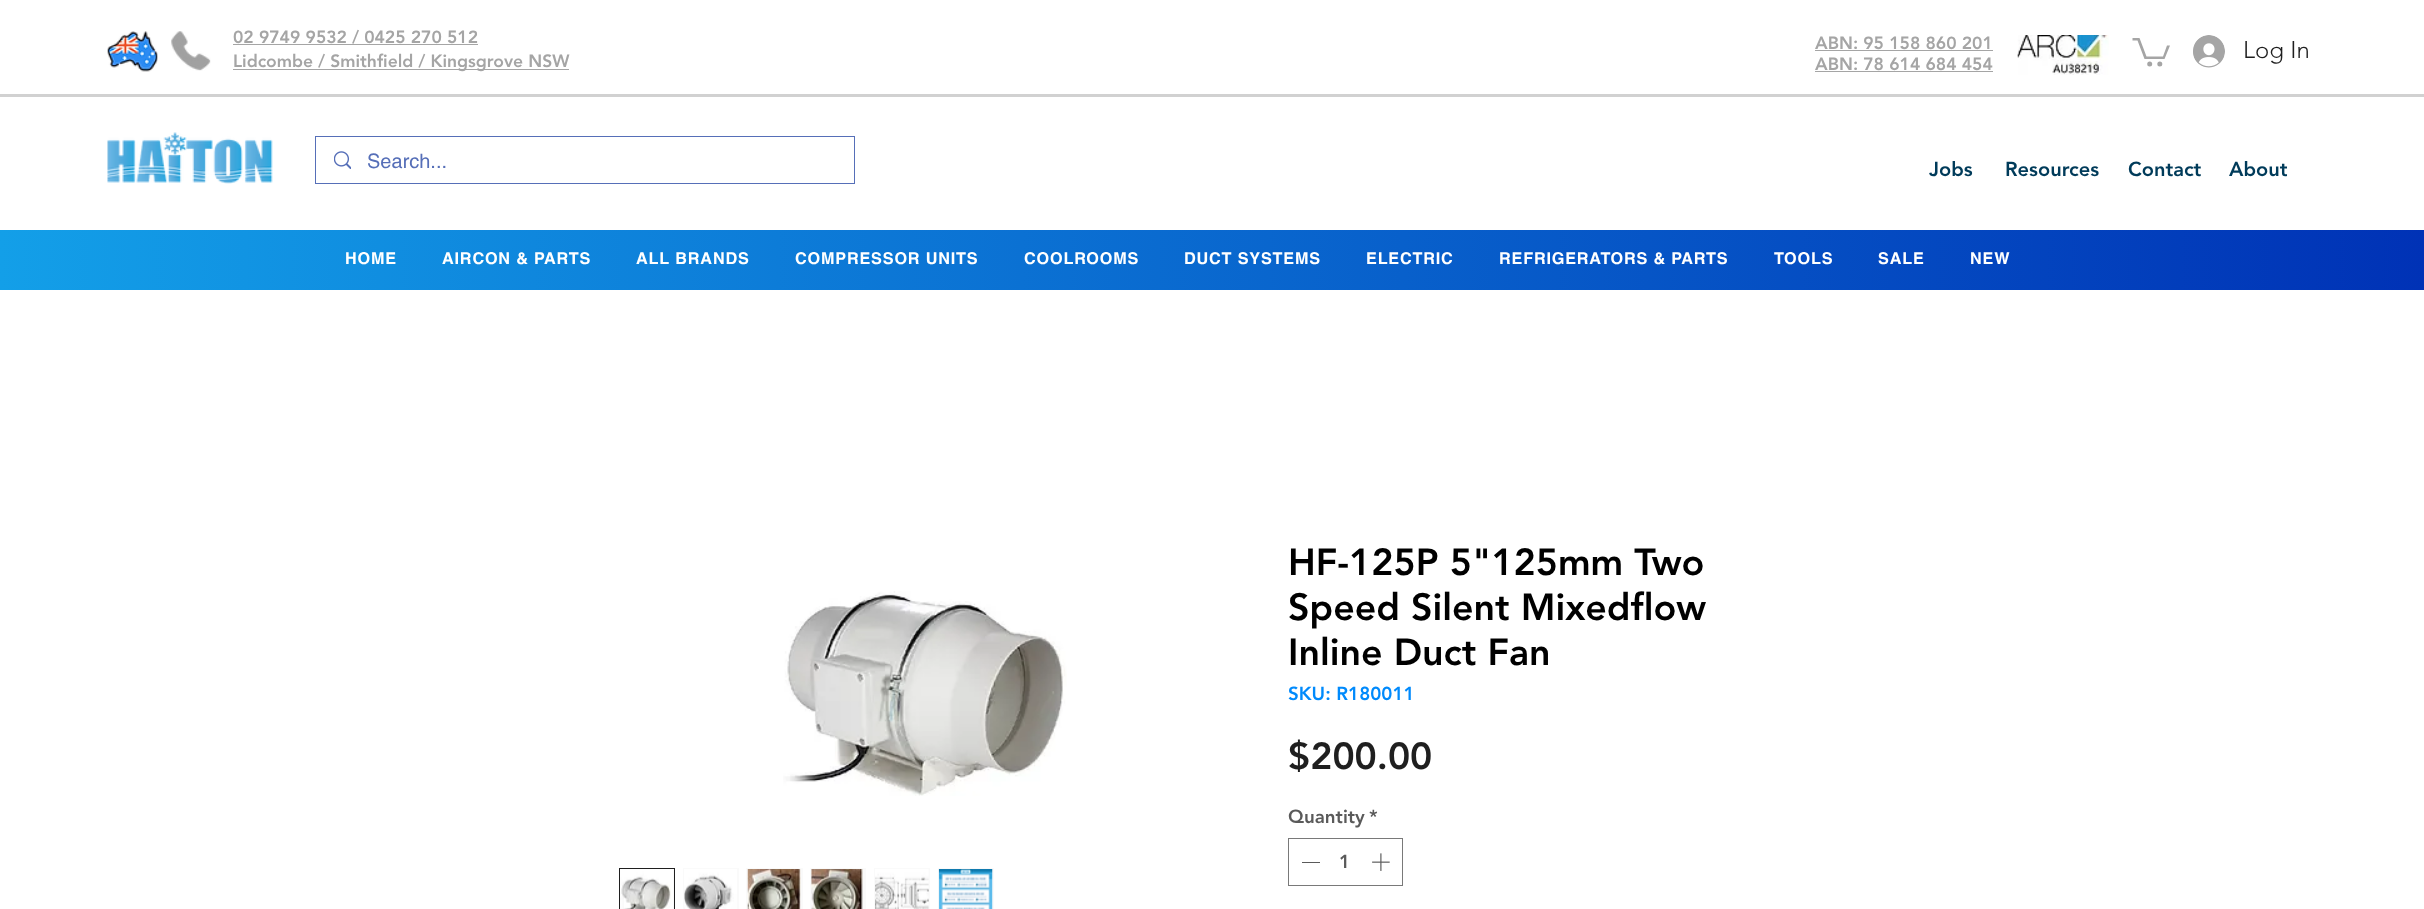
async function draw(canvas) {
	canvas.width = 2424;
	canvas.height = 909;
	const c = canvas.getContext('2d');
	c.miterLimit = 4;
	c.fontKerning = 'normal';
	async function loadImage(src) {
		const img = new Image();
		img.src = src;
		await img.decode();
		return img;
	}
	let gradient;

	c.fillStyle = '#fff';
	c.fillRect(0, 0, 2424, 909);
	c.drawImage(await loadImage('img1.png'), 107, 31, 51, 41);
	c.drawImage(await loadImage('img2.png'), 171, 31, 40, 40);
	c.font = '900 17.5px "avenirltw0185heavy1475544"';
	c.fillStyle = '#a5a5a5';
	c.fillText('02 9749 9532 / 0425 270 512', 233, 43);
	c.fillRect(233, 44, 245, 1);
	c.fillRect(233, 69, 336, 1);
	c.fillText('Lidcombe / Smithfield / Kingsgrove NSW', 233, 67);
	c.drawImage(await loadImage('img3.png'), 107, 132, 166, 52);
	c.strokeStyle = '#566fb8';
	c.strokeRect(315.5, 136.5, 539, 47);
	c.drawImage(await loadImage('img4.png'), 334, 151, 17, 18);
	c.font = '20px helvetica';
	c.fillStyle = '#566fb8';
	c.fillText('Search...', 367, 168);
	c.font = '900 17.5px "avenirltw0185heavy1475544"';
	c.fillStyle = '#a5a5a5';
	c.fillText('ABN: 95 158 860 201', 1815, 49);
	c.fillRect(1815, 50, 178, 1);
	c.fillText('ABN: 78 614 684 454', 1815, 70);
	c.fillRect(1815, 71, 178, 1);
	c.drawImage(await loadImage('img5.png'), 2017, 35, 92, 40);
	c.beginPath();
	c.moveTo(2170, 45.5);
	c.lineTo(2164.5, 59);
	c.lineTo(2144.5, 59);
	c.lineTo(2137.5, 40.5);
	c.lineTo(2132.5, 40.5);
	c.lineTo(2132.5, 38);
	c.lineTo(2139.5, 38);
	c.lineTo(2146.5, 56.5);
	c.lineTo(2163, 56.5);
	c.lineTo(2167, 45.5);
	c.fill();
	c.beginPath();
	c.arc(2159.8, 64, 2.5, 0, 2 * Math.PI);
	c.fill();
	c.beginPath();
	c.arc(2149.7, 64, 2.5, 0, 2 * Math.PI);
	c.fill();
	c.drawImage(await loadImage('img6.png'), 2193, 35, 32, 33);
	c.font = '300 24px "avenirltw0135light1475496"';
	c.fillStyle = '#1f1f1f';
	c.fillText('Log In', 2243, 58);
	c.font = '900 20px "avenirltw0185heavy1475544"';
	c.fillStyle = '#003b5a';
	for (const [text, x, y] of [
		['Jobs', 1929, 176],
		['Resources', 2005, 176],
		['Contact', 2128, 176],
		['About', 2229, 176],
	]) {
		c.fillText(text, x, y);
	}
	c.fillStyle = '#d1d1d1';
	c.fillRect(0, 94, 2424, 3);
	gradient = c.createLinearGradient(0, 260, 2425, 260);
	gradient.addColorStop(0, '#139fe8');
	gradient.addColorStop(1, '#0032b6');
	c.fillStyle = gradient;
	c.fillRect(0, 230, 2424, 60);
	c.letterSpacing = '0.8px';
	c.font = 'bold 16.25px helvetica';
	c.fillStyle = '#fff';
	for (const [text, x, y] of [
		['HOME', 345, 264],
		['AIRCON & PARTS', 442, 264],
		['ALL BRANDS', 636, 264],
		['COMPRESSOR UNITS', 795, 264],
		['COOLROOMS', 1024, 264],
		['DUCT SYSTEMS', 1184, 264],
		['ELECTRIC', 1366, 264],
		['REFRIGERATORS & PARTS', 1499, 264],
		['TOOLS', 1774, 264],
		['SALE', 1878, 264],
		['NEW', 1970, 264],
	]) {
		c.fillText(text, x, y);
	}
	c.drawImage(await loadImage('img7.png'), 783, 591, 284, 205);
	c.fillStyle = '#fafafa';
	c.fillRect(673, 869, 1, 40);
	c.strokeStyle = '#1f1f1f';
	c.strokeRect(619.5, 868.5, 55, 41);
	c.drawImage(await loadImage('img8.png'), 620, 869, 53, 40);
	c.fillRect(683, 868, 56, 41);
	c.drawImage(await loadImage('img9.png'), 684, 869, 53, 40);
	c.fillRect(746, 868, 57, 41);
	c.drawImage(await loadImage('img10.png'), 747, 869, 54, 40);
	c.fillRect(810, 868, 56, 41);
	c.drawImage(await loadImage('img11.png'), 811, 869, 52, 40);
	c.fillRect(874, 868, 56, 41);
	c.drawImage(await loadImage('img12.png'), 875, 869, 54, 40);
	c.fillRect(938, 868, 56, 41);
	c.drawImage(await loadImage('img13.png'), 938, 869, 55, 40);
	c.letterSpacing = '0px';
	c.font = '900 37.5px "avenirltw0185heavy1475544"';
	c.fillStyle = '#000';
	for (const [text, x, y] of [
		['HF-125P 5"125mm Two', 1288, 575],
		['Speed Silent Mixedflow', 1288, 620],
		['Inline Duct Fan', 1288, 665],
	]) {
		c.fillText(text, x, y);
	}
	c.font = '900 18.75px "avenirltw0185heavy1475544"';
	c.fillStyle = '#008afc';
	c.fillText('SKU: R180011', 1288, 700);
	c.font = '900 37.5px "avenirltw0185heavy1475544"';
	c.fillStyle = '#1f1f1f';
	c.fillText('$200.00', 1288, 769);
	c.font = '900 18.75px "avenirltw0185heavy1475544"';
	c.fillStyle = '#5a5a5a';
	c.fillText('Quantity', 1288, 823);
	c.fillText('*', 1369, 823);
	c.strokeStyle = '#797979';
	c.strokeRect(1288.5, 838.5, 114, 47);
	c.fillRect(1302, 862, 18, 1);
	c.fillText('1', 1339, 868);
	c.drawImage(await loadImage('img14.png'), 1372, 853, 18, 18);
}

draw(document.querySelector('canvas'));
